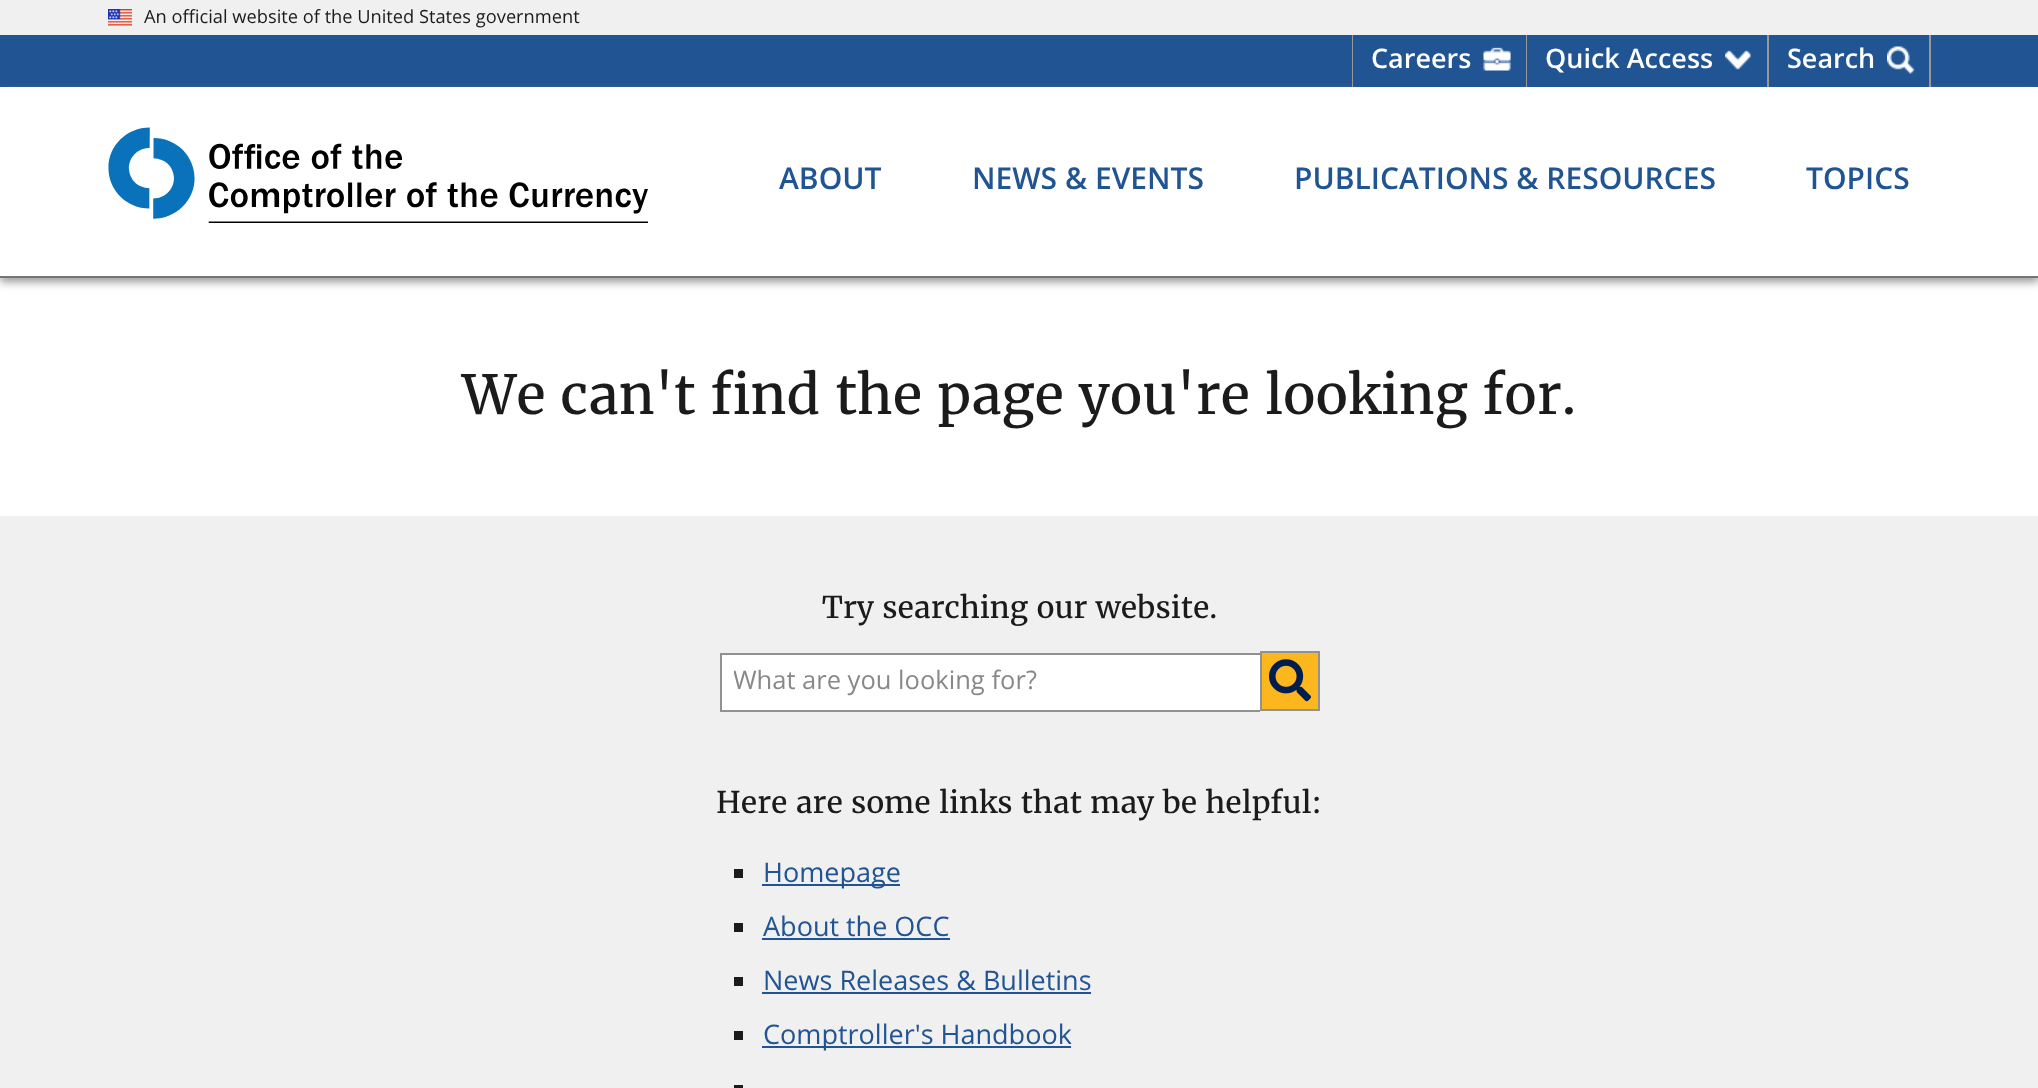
async function draw(canvas) {
	canvas.width = 2038;
	canvas.height = 1088;
	const c = canvas.getContext('2d');
	c.miterLimit = 4;
	c.fontKerning = 'normal';
	async function loadImage(src) {
		const img = new Image();
		img.src = src;
		await img.decode();
		return img;
	}

	c.fillStyle = '#fff';
	c.fillRect(0, 0, 2038, 1088);
	c.fillStyle = '#f0f0f0';
	c.fillRect(0, 0, 2038, 35);
	c.drawImage(await loadImage('img1.png'), 108, 9, 24, 17);
	c.font = '18.25px Open Sans';
	c.fillStyle = '#1b1b1b';
	c.fillText('An official website of the United States government', 144, 23);
	c.fillStyle = '#205493';
	c.fillRect(0, 35, 2038, 52);
	c.fillStyle = '#98999b';
	c.filter = 'blur(4.5px)';
	c.beginPath();
	c.rect(0, 92, 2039, 190);
	c.fill();
	c.filter = 'none';
	c.fillStyle = '#999';
	c.fillRect(1352, 35, 1, 52);
	c.fillStyle = '#205493';
	c.fillRect(1353, 83, 173, 4);
	c.drawImage(await loadImage('img2.png'), 1483, 47, 28, 24);
	c.font = '600 27px Open Sans';
	c.fillStyle = '#fff';
	c.fillText('Careers', 1371, 68);
	c.fillStyle = '#999';
	c.fillRect(1526, 35, 1, 52);
	c.fillStyle = '#205493';
	c.fillRect(1527, 83, 240, 4);
	c.drawImage(await loadImage('img3.png'), 1725, 50, 26, 20);
	c.fillStyle = '#fff';
	c.fillText('Quick Access', 1545, 68);
	for (const [x, y, w, h, color] of [
		[1929, 35, 2, 52, '#999'],
		[1767, 35, 2, 52, '#999'],
		[1769, 83, 160, 4, '#205493'],
	]) {
		c.fillStyle = color;
		c.fillRect(x, y, w, h);
	}
	c.drawImage(await loadImage('img4.png'), 1887, 46, 28, 28);
	c.fillStyle = '#fff';
	c.fillText('Search', 1787, 68);
	c.fillRect(0, 87, 2038, 189);
	c.fillStyle = '#757575';
	c.fillRect(0, 276, 2038, 2);
	c.drawImage(await loadImage('img5.png'), 108, 127, 540, 96);
	c.font = '600 30px Open Sans';
	c.fillStyle = '#205493';
	for (const [text, x, y] of [
		['ABOUT', 779, 189],
		['NEWS & EVENTS', 972, 189],
		['PUBLICATIONS & RESOURCES', 1294, 189],
		['TOPICS', 1806, 189],
	]) {
		c.fillText(text, x, y);
	}
	c.font = '54px Merriweather';
	c.fillStyle = '#1b1b1b';
	c.fillText('We can\'t find the page you\'re looking for.', 462, 414);
	c.fillStyle = '#f0f0f0';
	c.fillRect(0, 516, 2038, 572);
	c.font = '30px Merriweather';
	c.fillStyle = '#1b1b1b';
	c.fillText('Try searching our website.', 822, 618);
	for (const [x, y, w, h, color] of [
		[722, 655, 538, 55, '#fff'],
		[720, 653, 540, 2, '#919191'],
		[720, 710, 540, 2, '#919191'],
		[720, 653, 2, 58, '#919191'],
	]) {
		c.fillStyle = color;
		c.fillRect(x, y, w, h);
	}
	c.save();
	c.beginPath();
	c.rect(734, 663, 511, 35);
	c.clip();
	c.font = '25.5px Open Sans';
	c.fillStyle = '#888';
	c.fillText('What are you looking for?', 733, 689);
	c.restore();
	c.fillStyle = '#fcb71e';
	c.beginPath();
	c.rect(1261, 652, 58, 58);
	c.fill();
	c.strokeStyle = '#919191';
	c.lineWidth = 2;
	c.stroke();
	c.drawImage(await loadImage('img6.png'), 1269, 659, 42, 43);
	c.fillStyle = '#1b1b1b';
	c.fillText('Here are some links that may be helpful:', 716, 813);
	c.fillRect(734, 869, 9, 9);
	c.fillStyle = '#205493';
	c.fillRect(762, 884, 138, 2);
	c.font = '27px Open Sans';
	c.fillText('Homepage', 763, 882);
	c.fillStyle = '#1b1b1b';
	c.fillRect(734, 923, 9, 9);
	c.fillStyle = '#205493';
	c.fillText('About the OCC', 763, 936);
	c.fillRect(762, 938, 188, 2);
	c.fillStyle = '#1b1b1b';
	c.fillRect(734, 977, 9, 9);
	c.fillStyle = '#205493';
	c.fillText('News Releases & Bulletins', 763, 990);
	for (const [x, y, w, h, color] of [
		[762, 992, 329, 2, '#205493'],
		[734, 1031, 9, 9, '#1b1b1b'],
		[762, 1046, 309, 2, '#205493'],
	]) {
		c.fillStyle = color;
		c.fillRect(x, y, w, h);
	}
	c.fillText('Comptroller\'s Handbook', 763, 1044);
	c.fillStyle = '#1b1b1b';
	c.fillRect(734, 1085, 9, 3);
}

draw(document.querySelector('canvas'));
